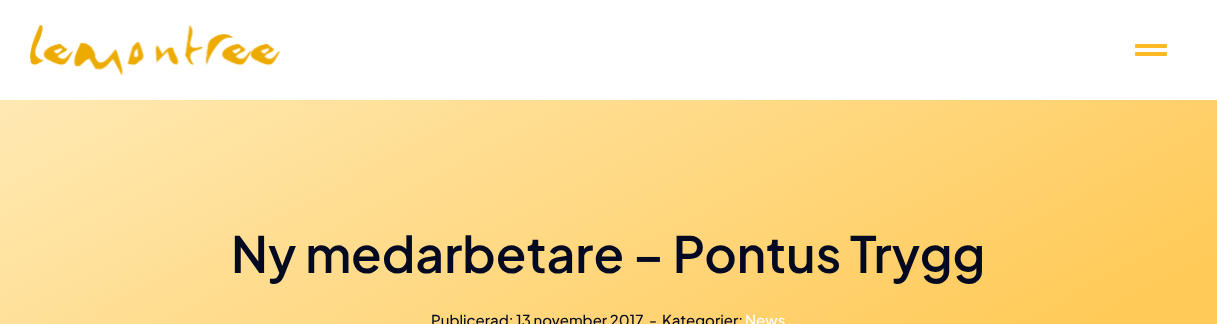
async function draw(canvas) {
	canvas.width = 1217;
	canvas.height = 324;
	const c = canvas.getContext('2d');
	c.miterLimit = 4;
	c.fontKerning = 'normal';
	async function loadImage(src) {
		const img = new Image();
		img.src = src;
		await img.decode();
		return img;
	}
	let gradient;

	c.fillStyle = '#fff';
	c.fillRect(0, 0, 1217, 324);
	c.drawImage(await loadImage('img1.png'), 30, 25, 250, 50);
	c.drawImage(await loadImage('img2.png'), 1135, 44, 32, 12);
	gradient = c.createLinearGradient(368, -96, 849, 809);
	gradient.addColorStop(0, '#ffe9b3');
	gradient.addColorStop(0.7, '#ffca57');
	c.fillStyle = gradient;
	c.fillRect(0, 100, 1217, 224);
	c.font = '600 50px Plus Jakarta Sans';
	c.fillStyle = '#040922';
	c.fillText('Ny medarbetare – Pontus Trygg', 231, 273);
	c.font = '500 15px Plus Jakarta Sans';
	for (const [text, x, y] of [
		['Publicerad: 13 november 2017', 431, 326],
		['-', 649, 326],
		['Kategorier:', 662, 326],
	]) {
		c.fillText(text, x, y);
	}
	c.fillStyle = '#fff';
	c.fillText('News', 745, 326);
}

draw(document.querySelector('canvas'));
